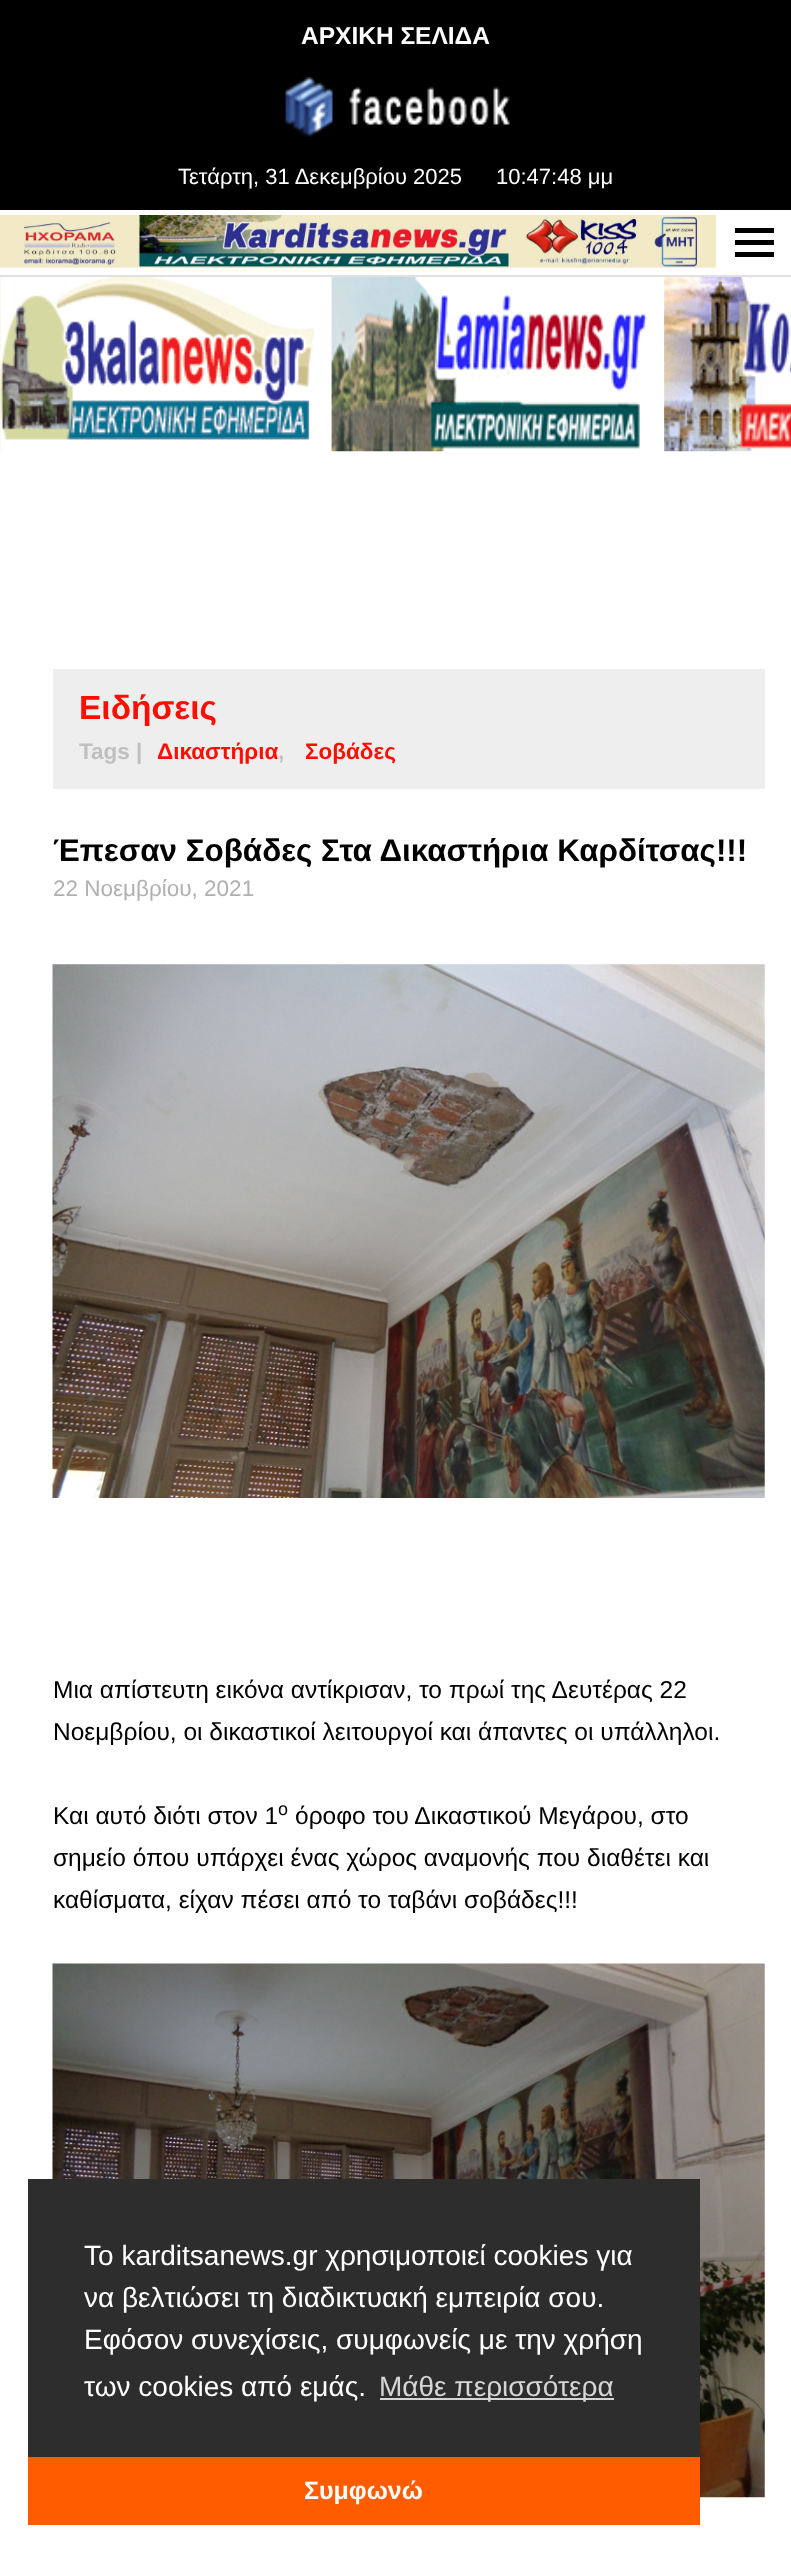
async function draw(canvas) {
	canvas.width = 791;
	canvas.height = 2553;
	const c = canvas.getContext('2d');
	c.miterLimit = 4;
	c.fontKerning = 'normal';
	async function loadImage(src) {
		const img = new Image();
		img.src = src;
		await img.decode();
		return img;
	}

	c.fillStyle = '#fff';
	c.fillRect(0, 0, 791, 2553);
	c.fillStyle = '#e1e1e1';
	c.fillRect(0, 275, 791, 2);
	c.fillStyle = '#000';
	c.fillRect(0, 0, 791, 210);
	c.font = 'bold 24.5px Liberation Sans';
	c.fillStyle = '#fff';
	c.fillText('ΑΡΧΙΚΗ ΣΕΛΙΔΑ', 301, 44);
	c.drawImage(await loadImage('img1.png'), 285, 77, 225, 60);
	c.font = '22px Liberation Sans';
	c.fillText('Τετάρτη, 31 Δεκεμβρίου 2025', 178, 184);
	c.fillText('10:47:48 μμ', 496, 184);
	c.drawImage(await loadImage('img2.png'), 0, 215, 716, 53);
	for (const [x, y, w, h, color] of [
		[735, 240, 39, 5, '#000'],
		[735, 228, 39, 5, '#000'],
		[735, 252, 39, 5, '#000'],
	]) {
		c.fillStyle = color;
		c.fillRect(x, y, w, h);
	}
	c.drawImage(await loadImage('img3.png'), 0, 277, 314, 175);
	c.drawImage(await loadImage('img4.png'), 331, 277, 316, 175);
	c.drawImage(await loadImage('img5.png'), 664, 277, 127, 175);
	c.fillStyle = '#eee';
	c.fillRect(53, 669, 712, 120);
	c.font = 'bold 33.5px Liberation Sans';
	c.fillStyle = '#ff0e00';
	c.fillText('Ειδήσεις', 79, 719);
	c.font = 'bold 22.5px Liberation Sans';
	c.fillStyle = '#c0c0c0';
	c.fillText('Tags |', 79, 759);
	c.fillStyle = '#ff0e00';
	c.fillText('Δικαστήρια', 157, 759);
	c.fillStyle = '#c0c0c0';
	c.fillText(',', 278, 759);
	c.fillStyle = '#ff0e00';
	c.fillText('Σοβάδες', 305, 759);
	c.font = 'bold 31.4px Liberation Sans';
	c.fillStyle = '#000';
	c.fillText('Έπεσαν Σοβάδες Στα Δικαστήρια Καρδίτσας!!!', 53, 861);
	c.font = '22.5px Liberation Sans';
	c.fillStyle = '#b0b0b0';
	c.fillText('22 Νοεμβρίου, 2021', 53, 896);
	c.drawImage(await loadImage('img6.png'), 52, 964, 713, 534);
	c.font = '24.5px Liberation Sans';
	c.fillStyle = '#000';
	for (const [text, x, y] of [
		['Μια απίστευτη εικόνα αντίκρισαν, το πρωί της Δευτέρας 22', 53, 1698],
		['Νοεμβρίου, οι δικαστικοί λειτουργοί και άπαντες οι υπάλληλοι.', 53, 1740],
		['Και αυτό διότι στον 1', 53, 1824],
	]) {
		c.fillText(text, x, y);
	}
	c.font = '18px Liberation Sans';
	c.fillText('ο', 278, 1815);
	c.font = '24.5px Liberation Sans';
	for (const [text, x, y] of [
		['όροφο του Δικαστικού Μεγάρου, στο', 295, 1824],
		['σημείο όπου υπάρχει ένας χώρος αναμονής που διαθέτει και', 53, 1866],
		['καθίσματα, είχαν πέσει από το ταβάνι σοβάδες!!!', 53, 1908],
	]) {
		c.fillText(text, x, y);
	}
	c.drawImage(await loadImage('img7.png'), 52, 1963, 713, 535);
	c.fillStyle = '#2d2d2d';
	c.fillRect(28, 2179, 672, 278);
	c.font = '28px Liberation Sans';
	c.fillStyle = '#fff';
	for (const [text, x, y] of [
		['Το karditsanews.gr χρησιμοποιεί cookies για', 84, 2265],
		['να βελτιώσει τη διαδικτυακή εμπειρία σου.', 84, 2307],
		['Εφόσον συνεχίσεις, συμφωνείς με την χρήση', 84, 2349],
		['των cookies από εμάς.', 84, 2396],
	]) {
		c.fillText(text, x, y);
	}
	c.fillStyle = '#d5d5d5';
	c.fillRect(380, 2398, 234, 2);
	c.fillText('Μάθε περισσότερα', 379, 2396);
	c.fillStyle = '#ff5c00';
	c.fillRect(28, 2457, 672, 68);
	c.font = 'bold 25px Liberation Sans';
	c.fillStyle = '#fff';
	c.fillText('Συμφωνώ', 304, 2499);
}

draw(document.querySelector('canvas'));
